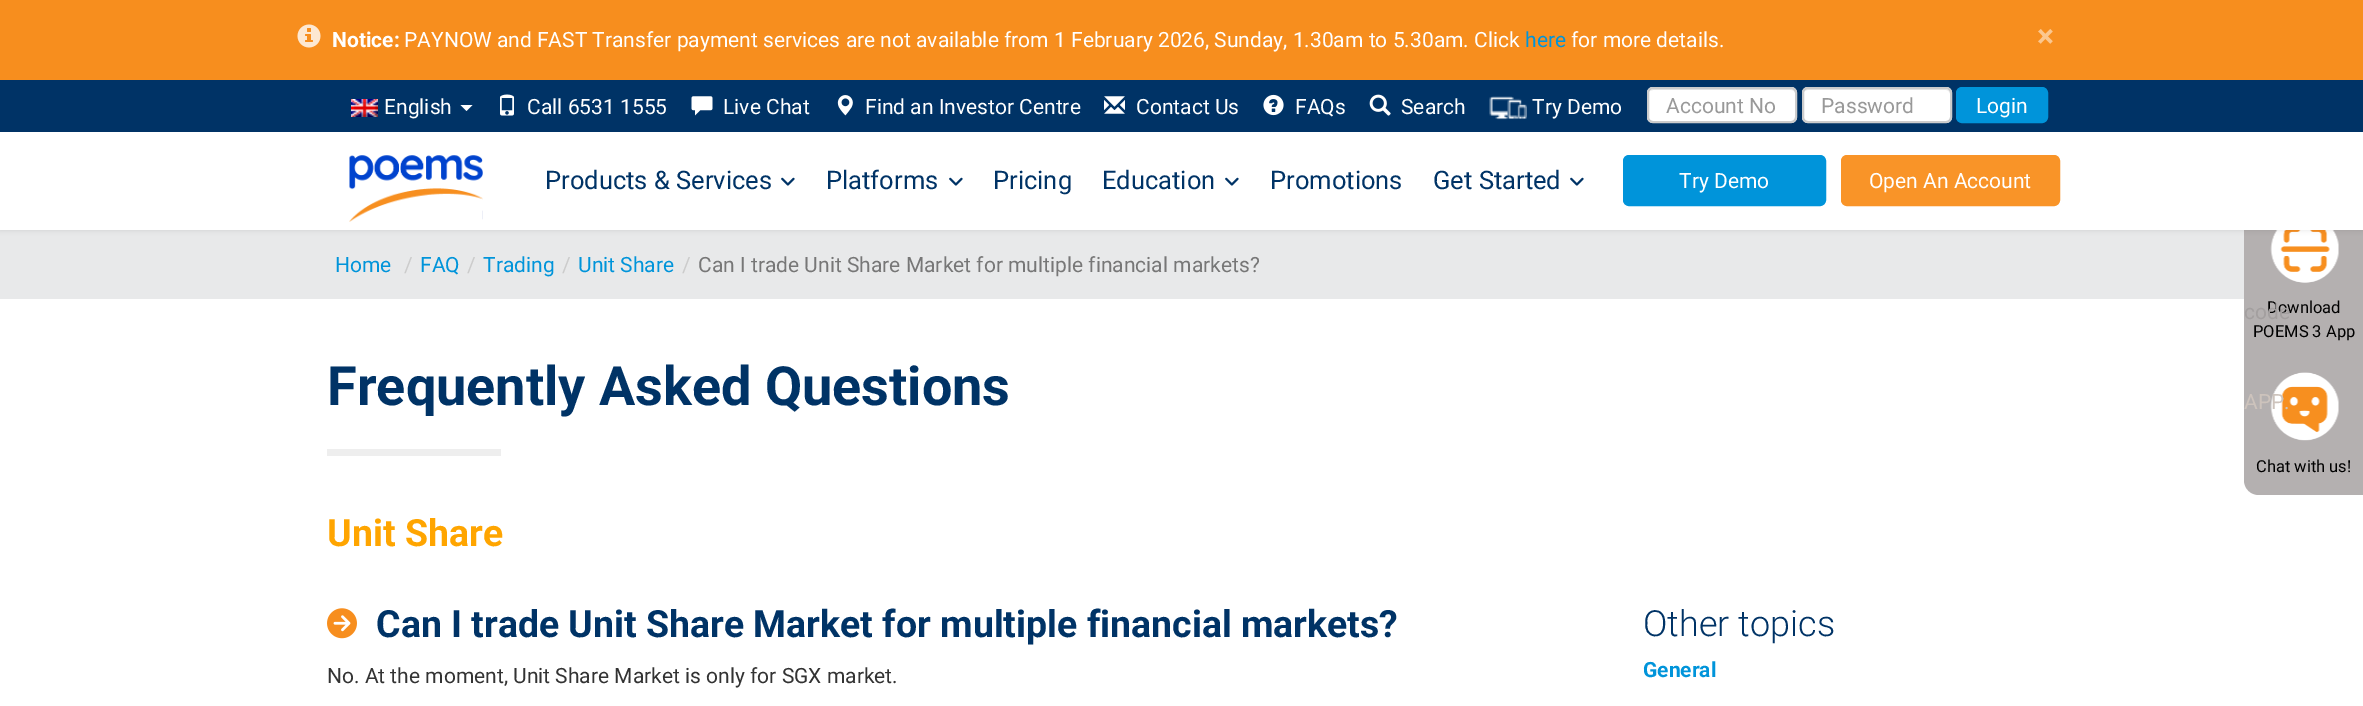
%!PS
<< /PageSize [2363 706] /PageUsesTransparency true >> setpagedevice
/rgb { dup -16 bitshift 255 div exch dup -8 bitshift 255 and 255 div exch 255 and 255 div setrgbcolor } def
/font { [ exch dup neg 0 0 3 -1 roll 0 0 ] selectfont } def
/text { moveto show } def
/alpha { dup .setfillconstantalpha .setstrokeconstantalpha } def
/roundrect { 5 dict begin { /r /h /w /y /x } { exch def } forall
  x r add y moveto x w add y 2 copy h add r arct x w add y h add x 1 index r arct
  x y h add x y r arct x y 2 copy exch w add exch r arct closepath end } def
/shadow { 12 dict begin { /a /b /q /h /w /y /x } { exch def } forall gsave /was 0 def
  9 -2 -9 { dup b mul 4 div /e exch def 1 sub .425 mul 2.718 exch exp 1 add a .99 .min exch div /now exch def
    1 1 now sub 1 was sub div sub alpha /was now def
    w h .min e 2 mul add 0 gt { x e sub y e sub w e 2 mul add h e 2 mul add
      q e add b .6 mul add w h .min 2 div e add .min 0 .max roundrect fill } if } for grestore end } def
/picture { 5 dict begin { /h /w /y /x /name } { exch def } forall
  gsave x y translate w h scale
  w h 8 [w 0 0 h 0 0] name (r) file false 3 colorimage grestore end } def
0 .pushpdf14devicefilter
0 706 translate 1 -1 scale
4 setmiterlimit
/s1 { /Roboto-Bold 21 font 16#FFFFFF rgb } def
/s2 { /Roboto-Regular 21 font 16#FFFFFF rgb } def
/s3 { /Roboto-Regular 21 font 16#0094DA rgb } def
/s4 { /Roboto-Bold 32 font 16#FBC78F rgb } def
/s5 { /Roboto-Regular 21 font 16#999999 rgb } def
/s6 { /Roboto-Regular 25.5 font 16#003366 rgb } def
/s7 { /Roboto-Regular 21 font 16#CCCCCC rgb } def
/s8 { /Roboto-Regular 21 font 16#777777 rgb } def
/s9 { /Roboto-Bold 54 font 16#003366 rgb } def
/s10 { /Roboto-Bold 37.5 font 16#FFA500 rgb } def
/s11 { /Roboto-Bold 37.5 font 16#003366 rgb } def
/s12 { /Roboto-Regular 21 font 16#333333 rgb } def
/s13 { /Roboto-Light 36 font 16#003366 rgb } def
/s14 { /Roboto-Bold 21 font 16#0094DA rgb } def
/s15 { /Roboto-Regular 16.5 font 16#000000 rgb } def
/s16 { /Roboto-Regular 21 font 16#A39F9F rgb } def
/s17 { /Roboto-Regular 21 font 16#CDC3BC rgb } def
16#E8E9EA rgb
0 0 2363 706 rectfill
16#F78E1E rgb
0 0 2363 80 rectfill
(pic1.raw) 297 24 24 24 picture
s1
(Notice:) 332 47 text
s2
(PAYNOW and FAST Transfer payment services are not available from 1 February 2026, Sunday, 1.30am to 5.30am. Click) 404 47 text
s3
(here) 1525 47 text
s2
(for more details.) 1571 47 text
s4
(×) 2037 47 text
16#003366 rgb
0 80 2363 52 rectfill
(pic2.raw) 351 99 27 18 picture
s2
(English) 384 114 text
460.5 105 moveto 472.5 105 lineto 466.5 111 lineto closepath fill
(pic3.raw) 500 94 14 22 picture
(Call 6531 1555) 527 114 text
(pic4.raw) 691 96 22 20 picture
(Live Chat) 723 114 text
(pic5.raw) 837 95 16 21 picture
(Find an Investor Centre) 865 114 text
(pic6.raw) 1104 96 21 18 picture
(Contact Us) 1136 114 text
(pic7.raw) 1263 94 21 22 picture
(FAQs) 1295 114 text
(pic8.raw) 1369 94 22 22 picture
(Search) 1401 114 text
(pic9.raw) 1489 96 38 24 picture
(Try Demo) 1532 114 text
1647 87 150 36 6 roundrect fill
16#ECECEC rgb
1653 90 moveto 1791 90 lineto 1793 90 1796 92 1796 94 curveto 1796 91 1794 89 1791 89 curveto 1654 89 lineto 1652 89 1651 90 1650 91 curveto closepath fill
16#CCCCCC rgb
2 setlinewidth
1648 88 148 34 5 roundrect stroke
s5
(Account No) 1666 113 text
16#FFFFFF rgb
1802 87 150 36 6 roundrect fill
16#ECECEC rgb
1808 90 moveto 1946 90 lineto 1948 90 1950 92 1950 94 curveto 1950 91 1948 89 1945 89 curveto 1808 89 lineto 1805 89 1803 91 1803 94 curveto 1803 92 1805 90 1808 90 curveto closepath fill
16#CCCCCC rgb
1803 88 148 34 5 roundrect stroke
s5
(Password) 1821 113 text
16#0094DA rgb
1957 88 90 34 5 roundrect gsave fill grestore
stroke
s2
(Login) 1976 113 text
0 299 2363 407 rectfill
16#B4B0B0 rgb
2244 230 119 127 rectfill
(pic13.raw) 2270 230 69 53 picture
16#000000 rgb
0 134 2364 97 0 2 0.07 shadow
16#FFFFFF rgb
0 132 2363 98 rectfill
(pic10.raw) 349 155 134 67 picture
s6
(Products & Services) 545 189 text
(pic11.raw) 781 177 14 9 picture
(Platforms) 826 189 text
(pic11.raw) 949 177 14 9 picture
(Pricing) 993 189 text
(Education) 1102 189 text
(pic11.raw) 1225 177 14 9 picture
(Promotions) 1270 189 text
(Get Started) 1433 189 text
(pic11.raw) 1570 177 14 9 picture
16#0094DA rgb
1624 156 201 49 5 roundrect gsave fill grestore
stroke
s2
(Try Demo) 1679 188 text
16#F99428 rgb
1842 156 217 49 5 roundrect gsave fill grestore
stroke
s2
(Open An Account) 1869 188 text
s3
(Home) 335 272 text
s7
(/) 404 272 text
s3
(FAQ) 420 272 text
s7
(/) 467 272 text
s3
(Trading) 483 272 text
s7
(/) 562 272 text
s3
(Unit Share) 578 272 text
s7
(/) 682 272 text
s8
(Can I trade Unit Share Market for multiple financial markets?) 698 272 text
s9
(Frequently Asked Questions) 327 405 text
16#EEEEEE rgb
327 449 174 7 rectfill
s10
(Unit Share) 327 546 text
(pic12.raw) 327 608 30 31 picture
s11
(Can I trade Unit Share Market for multiple financial markets?) 376 637 text
s12
(No. At the moment, Unit Share Market is only for SGX market.) 327 683 text
s13
(Other topics) 1643 636 text
s14
(General) 1643 677 text
s15
(Download) 2267 313 text
(POEMS 3 App) 2253 337 text
s16
(code) 2244 319 text
16#B4B0B0 rgb
2244 357 moveto 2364 357 lineto 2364 495 lineto 2259 495 lineto 2250.5 495 2244 488.5 2244 480 curveto closepath fill
(pic14.raw) 2270 372 69 69 picture
s17
(APP.) 2244 409 text
s15
(Chat with us!) 2256 472 text
.poppdf14devicefilter showpage
